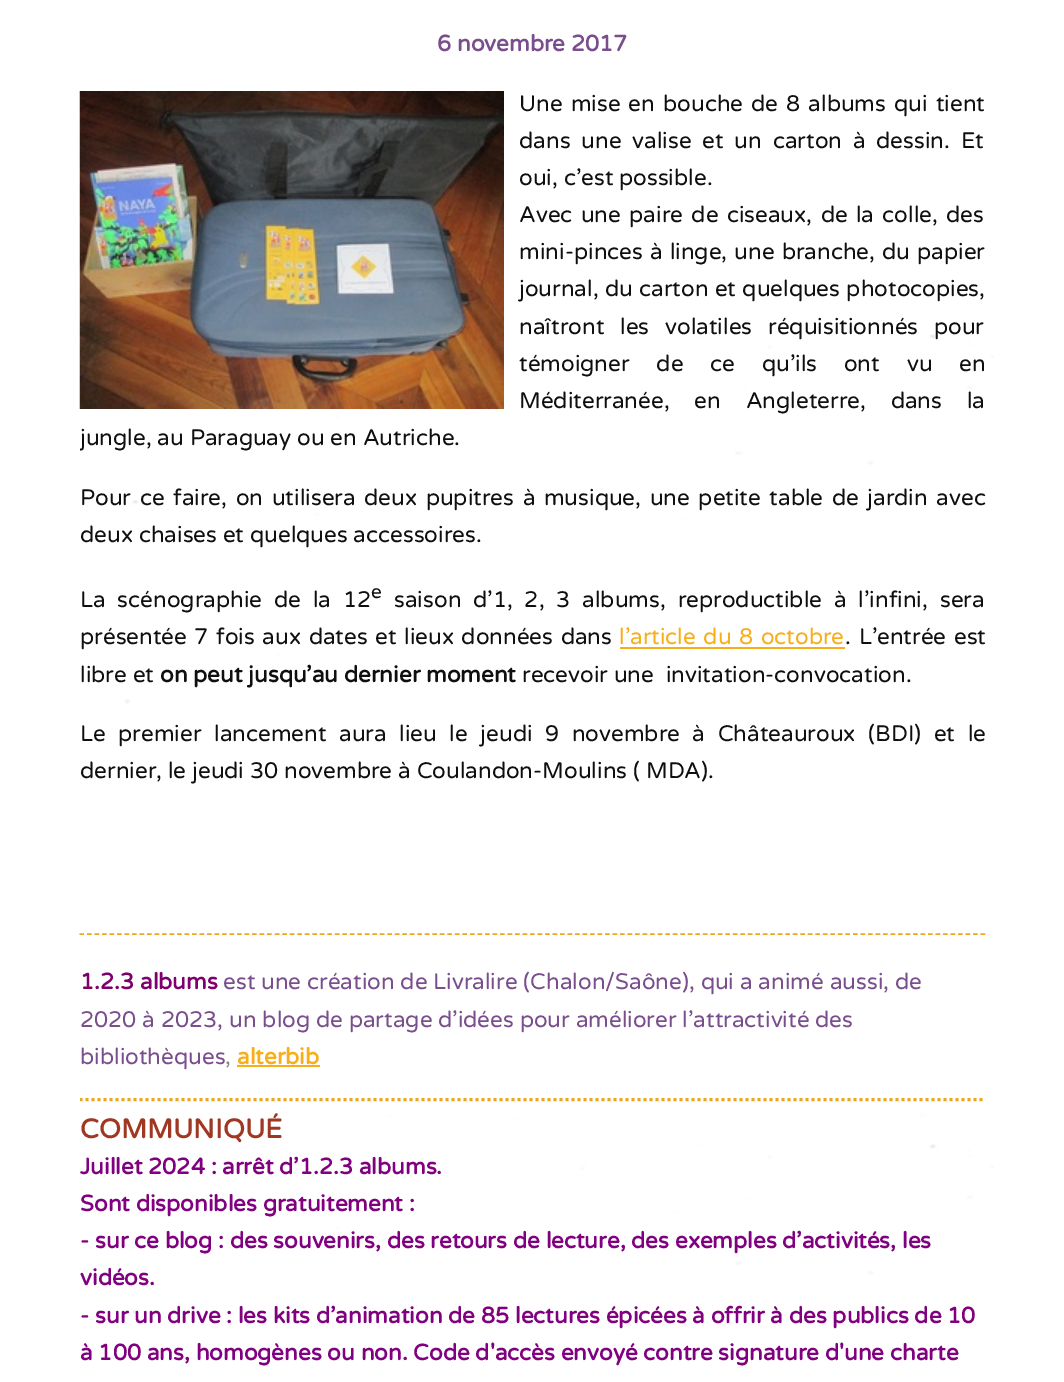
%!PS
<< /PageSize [1064 1382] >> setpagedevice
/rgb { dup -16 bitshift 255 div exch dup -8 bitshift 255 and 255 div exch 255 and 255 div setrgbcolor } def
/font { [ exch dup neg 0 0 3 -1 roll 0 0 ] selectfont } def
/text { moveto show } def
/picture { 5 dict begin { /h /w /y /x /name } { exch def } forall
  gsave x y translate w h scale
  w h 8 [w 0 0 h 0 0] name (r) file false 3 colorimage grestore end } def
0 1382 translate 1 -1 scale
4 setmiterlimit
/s1 { /VarelaRound-Bold 22.5 font 16#7A4E8D rgb } def
/s2 { /VarelaRound-Regular 22.5 font 16#0F0F0F rgb } def
/s3 { /VarelaRound-Regular 19 font 16#0F0F0F rgb } def
/s4 { /VarelaRound-Bold 22.5 font 16#0F0F0F rgb } def
/s5 { /VarelaRound-Bold 22.5 font 16#7F006C rgb } def
/s6 { /VarelaRound-Regular 22.5 font 16#7A4E8D rgb } def
/s7 { /VarelaRound-Regular 22.5 font 16#888888 rgb } def
/s8 { /VarelaRound-Bold 22.5 font 16#F8AE19 rgb } def
/s9 { /VarelaRound-Bold 27 font 16#A03722 rgb } def
/s10 { /VarelaRound-Bold 22.5 font 16#800080 rgb } def
16#FFFFFF rgb
0 0 1064 1382 rectfill
(pic1.raw) 124 334 870 980 picture
s1
(6 novembre 2017) 437 51 text
(pic2.raw) 79 91 425 318 picture
/VarelaRound-Regular 22.5 font
16#0F0F0F rgb
519 111 moveto 2.25 0 32 (Une mise en bouche de 8 albums qui tient) widthshow
519 148 moveto 5 0 32 (dans une valise et un carton à dessin. Et) widthshow
(oui, c’est possible.) 519 185 text
519 222 moveto 2.5 0 32 (Avec une paire de ciseaux, de la colle, des) widthshow
519 259 moveto 1.25 0 32 (mini-pinces à linge, une branche, du papier) widthshow
519 296 moveto 0.5 0 32 (journal, du carton et quelques photocopies,) widthshow
519 334 moveto 10 0 32 (naîtront les volatiles réquisitionnés pour) widthshow
519 371 moveto 21 0 32 (témoigner de ce qu’ils ont vu en) widthshow
519 408 moveto 19 0 32 (Méditerranée, en Angleterre, dans la) widthshow
gsave
80 0 906 873 rectclip
(jungle, au Paraguay ou en Autriche.) 80 445 text
grestore
80 505 moveto 2.75 0 32 (Pour ce faire, on utilisera deux pupitres à musique, une petite table de jardin avec) widthshow
(deux chaises et quelques accessoires.) 80 542 text
80 607 moveto 6 0 32 (La scénographie de la 12) widthshow
s3
(e) 371 598 text
/VarelaRound-Regular 22.5 font
394 607 moveto 6 0 32 (saison d’1, 2, 3 albums, reproductible à l’infini, sera) widthshow
80 644 moveto 1.75 0 32 (présentée 7 fois aux dates et lieux données dans) widthshow
16#F8AE19 rgb
619 644 moveto 1.75 0 32 (l’article du 8 octobre) widthshow
620 647 225 2 rectfill
16#0F0F0F rgb
845 644 moveto 2 0 32 (. L’entrée est) widthshow
(libre et) 80 682 text
s4
(on peut jusqu’au dernier moment) 160 682 text
s2
(recevoir une  invitation-convocation.) 522 682 text
80 741 moveto 6.75 0 32 (Le premier lancement aura lieu le jeudi 9 novembre à Châteauroux \(BDI\) et le) widthshow
(dernier, le jeudi 30 novembre à Coulandon-Moulins \( MDA\).) 80 778 text
16#EEA621 rgb
1.5 setlinewidth
[4.5 3.01] 0 setdash
79.5 934 moveto 985.5 934 lineto stroke
gsave
80 935 906 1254 rectclip
3 setlinewidth
[3 3] 0 setdash
79.5 1099.5 moveto 985.5 1099.5 lineto stroke
grestore
s5
(1.2.3 albums) 80 989 text
s6
(est une création de Livralire \(Chalon/Saône\), qui a animé aussi, de) 223 989 text
(2020 à 2023, un blog de partage d’idées pour améliorer l’attractivité des) 80 1027 text
(bibliothèques) 80 1064 text
s7
(,) 225 1064 text
s8
(alterbib) 237 1064 text
237 1065 83 2 rectfill
s9
(COMMUNIQUÉ) 80 1138 text
s10
(Juillet 2024 : arrêt d’1.2.3 albums.) 80 1174 text
(Sont disponibles gratuitement :) 80 1211 text
(- sur ce blog : des souvenirs, des retours de lecture, des exemples d’activités, les) 80 1248 text
(vidéos.) 80 1285 text
(- sur un drive : les kits d’animation de 85 lectures épicées à offrir à des publics de 10) 80 1323 text
(à 100 ans, homogènes ou non. Code d'accès envoyé contre signature d'une charte) 80 1360 text
showpage
